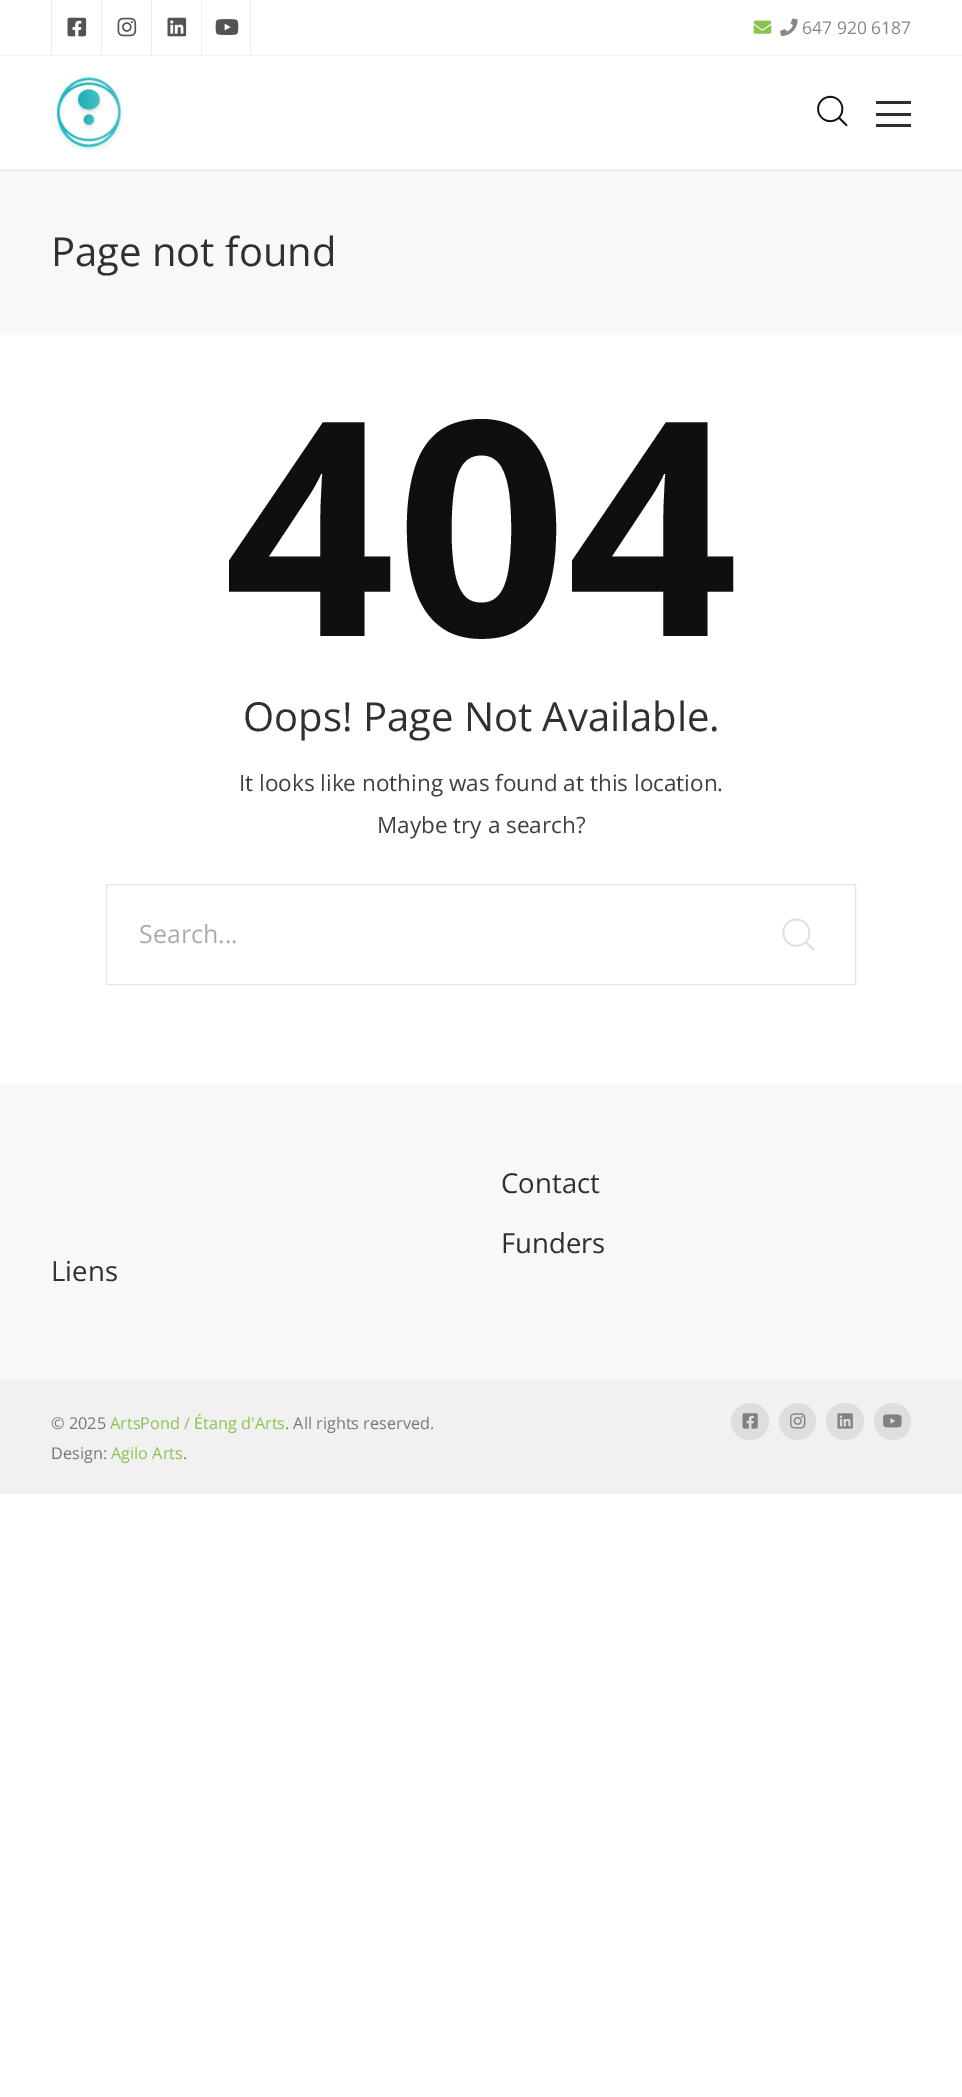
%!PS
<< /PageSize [962 2097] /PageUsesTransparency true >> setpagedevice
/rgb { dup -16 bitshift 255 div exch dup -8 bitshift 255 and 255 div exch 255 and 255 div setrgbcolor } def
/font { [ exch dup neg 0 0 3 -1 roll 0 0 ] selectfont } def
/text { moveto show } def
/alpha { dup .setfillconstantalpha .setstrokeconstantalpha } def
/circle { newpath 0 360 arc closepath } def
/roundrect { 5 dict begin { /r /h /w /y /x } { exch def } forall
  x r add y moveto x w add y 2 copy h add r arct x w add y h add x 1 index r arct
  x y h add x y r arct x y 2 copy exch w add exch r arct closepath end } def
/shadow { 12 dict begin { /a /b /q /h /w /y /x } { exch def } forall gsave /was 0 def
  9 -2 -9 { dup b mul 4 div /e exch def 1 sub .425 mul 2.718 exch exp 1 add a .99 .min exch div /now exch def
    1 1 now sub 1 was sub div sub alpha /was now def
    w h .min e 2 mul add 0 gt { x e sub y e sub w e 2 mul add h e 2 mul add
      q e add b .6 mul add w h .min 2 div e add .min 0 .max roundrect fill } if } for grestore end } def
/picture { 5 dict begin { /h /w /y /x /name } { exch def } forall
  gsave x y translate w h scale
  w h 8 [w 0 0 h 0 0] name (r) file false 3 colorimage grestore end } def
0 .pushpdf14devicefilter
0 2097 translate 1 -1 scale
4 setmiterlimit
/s1 { /OpenSans-Regular 17.5 font 16#888888 rgb } def
/s2 { /OpenSans-Regular 40 font 16#303030 rgb } def
/s3 { /OpenSans-Bold 300 font 16#0F0F0F rgb } def
/s4 { /OpenSans-Regular 22.5 font 16#3F3F3F rgb } def
/s5 { /OpenSans-Regular 25 font 16#AAAAAA rgb } def
/s6 { /OpenSans-Regular 27.5 font 16#303030 rgb } def
/s7 { /OpenSans-Regular 16.25 font 16#777777 rgb } def
/s8 { /OpenSans-Regular 16.25 font 16#8BC14E rgb } def
16#FFFFFF rgb
0 0 962 2097 rectfill
16#F8F8F8 rgb
0 169 962 166 rectfill
gsave
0 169 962 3 rectclip
16#000000 rgb
0 0 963 169 0 4.5 0.09 shadow
grestore
16#F3F3F3 rgb
0 55 962 1 rectfill
16#EEEEEE rgb
51 0 1 56 rectfill
(pic1.raw) 67 17 20 20 picture
101 0 1 56 rectfill
(pic2.raw) 117 17 20 20 picture
151 0 1 56 rectfill
(pic3.raw) 167 17 20 20 picture
250 0 1 56 rectfill
201 0 1 56 rectfill
(pic4.raw) 215 19 24 16 picture
(pic5.raw) 753 20 19 14 picture
(pic6.raw) 780 18 18 18 picture
s1
(647 920 6187) 802 34 text
16#FFFFFF rgb
4 168 955 1 rectfill
(pic7.raw) 55 77 68 73 picture
(pic8.raw) 817 95 31 32 picture
16#303030 rgb
876 113 35 3 rectfill
876 101 35 3 rectfill
876 124 35 3 rectfill
s2
(Page not found) 51 266 text
s3
(404) 224 636 text
s2
(Oops! Page Not Available.) 243 731 text
s4
(It looks like nothing was found at this location.) 239 791 text
(Maybe try a search?) 377 833 text
16#E6E6E6 rgb
106.5 884.5 749 100 rectstroke
s5
(Search...) 139 943 text
(pic9.raw) 782 918 33 33 picture
16#F8F8F8 rgb
0 1085 962 296 rectfill
s6
(Contact) 501 1193 text
(Funders) 501 1253 text
(Liens) 51 1281 text
16#F1F1F1 rgb
0 1381 962 113 rectfill
s7
(© 2025) 51 1429 text
s8
(ArtsPond / Étang d'Arts) 110 1429 text
s7
(. All rights reserved.) 285 1429 text
(Design:) 51 1459 text
s8
(Agilo Arts) 111 1459 text
s7
(.) 183 1459 text
16#DEDEDE rgb
731 1403 38 37 18.5 roundrect fill
(pic10.raw) 742 1413 16 16 picture
797.5 1421.5 18.5 circle fill
(pic11.raw) 790 1413 16 16 picture
826 1403 38 37 18.5 roundrect fill
(pic12.raw) 837 1413 16 16 picture
892.5 1421.5 18.5 circle fill
(pic13.raw) 883 1414 19 14 picture
.poppdf14devicefilter showpage
